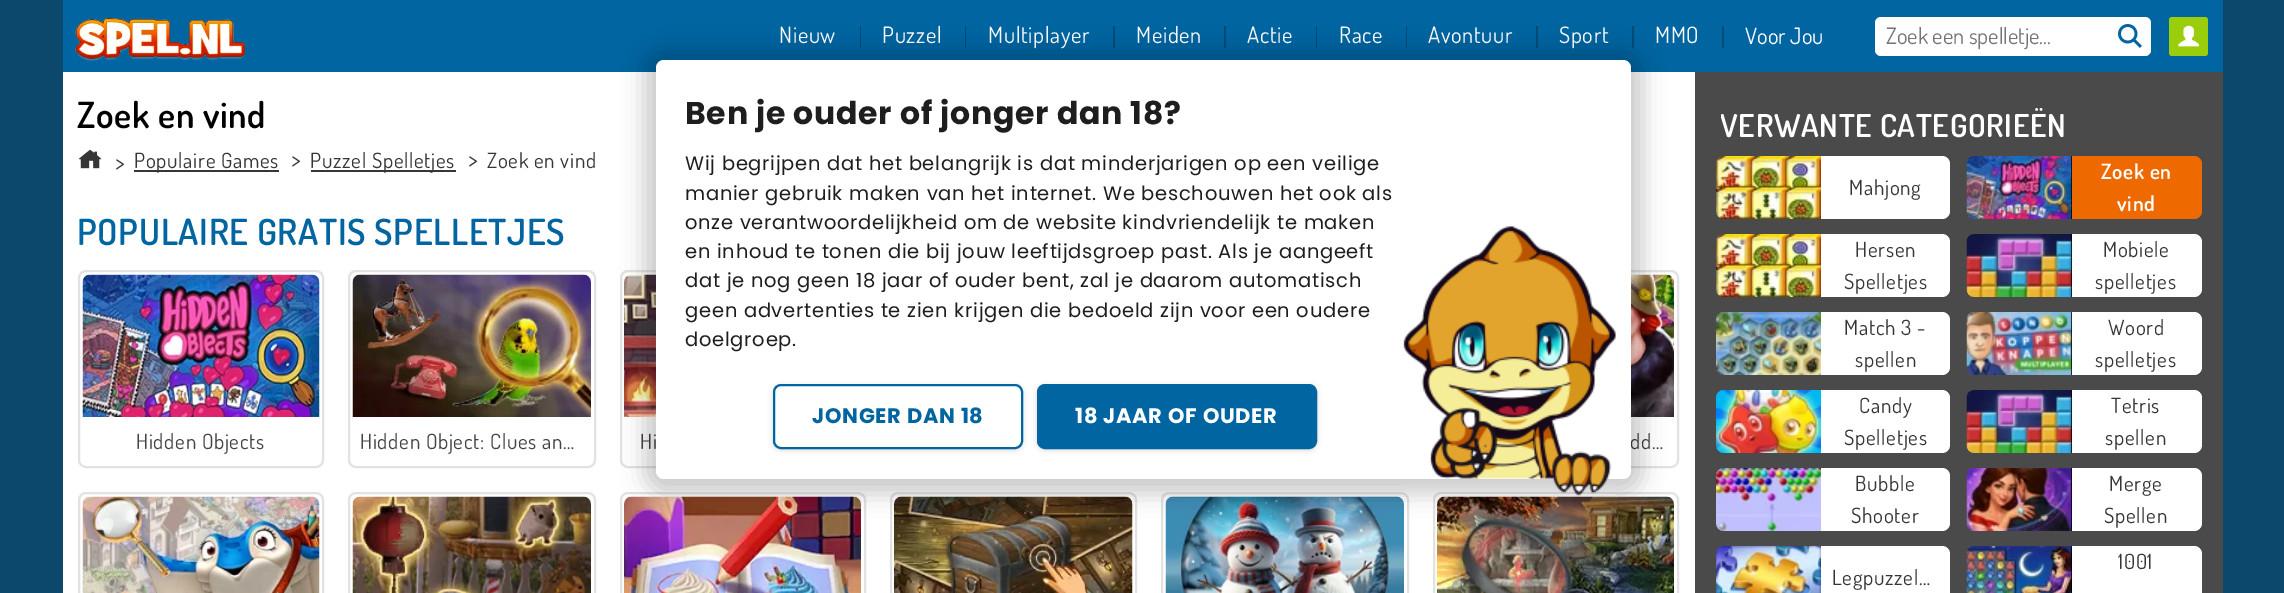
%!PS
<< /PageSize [2284 593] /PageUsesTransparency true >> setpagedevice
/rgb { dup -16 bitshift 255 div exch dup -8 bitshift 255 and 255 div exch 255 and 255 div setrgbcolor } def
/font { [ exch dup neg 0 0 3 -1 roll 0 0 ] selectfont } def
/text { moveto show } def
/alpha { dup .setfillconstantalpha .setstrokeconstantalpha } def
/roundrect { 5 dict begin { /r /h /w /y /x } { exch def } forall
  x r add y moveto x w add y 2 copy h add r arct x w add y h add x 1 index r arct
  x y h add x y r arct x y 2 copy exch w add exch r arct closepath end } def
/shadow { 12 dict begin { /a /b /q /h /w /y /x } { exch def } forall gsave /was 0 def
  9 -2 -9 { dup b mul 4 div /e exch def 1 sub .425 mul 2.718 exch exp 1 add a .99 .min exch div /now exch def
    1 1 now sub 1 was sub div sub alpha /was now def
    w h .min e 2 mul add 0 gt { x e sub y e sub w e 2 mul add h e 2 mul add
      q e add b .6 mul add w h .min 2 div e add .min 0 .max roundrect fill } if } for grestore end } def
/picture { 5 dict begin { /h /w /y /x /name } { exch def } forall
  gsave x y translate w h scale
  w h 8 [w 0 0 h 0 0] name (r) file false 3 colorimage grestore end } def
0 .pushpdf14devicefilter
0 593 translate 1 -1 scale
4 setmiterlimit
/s1 { /Dosis-Regular 22.5 font 16#FFFFFF rgb } def
/s2 { /Dosis-Regular 22.5 font 16#757575 rgb } def
16#0C486C rgb
0 0 2284 593 rectfill
16#0065A0 rgb
63 0 2160 72 rectfill
(pic1.raw) 75 18 170 44 picture
/Dosis-Regular 22.5 font
16#FFFFFF rgb
779 43 moveto 0.72 0 (Nieuw) ashow
16#014C78 rgb
860 26 1 22 rectfill
16#FFFFFF rgb
882 43 moveto 0.72 0 (Puzzel) ashow
16#014C78 rgb
965 26 1 22 rectfill
16#FFFFFF rgb
988 43 moveto 0.72 0 (Multiplayer) ashow
16#014C78 rgb
1113 26 2 22 rectfill
16#FFFFFF rgb
1136 43 moveto 0.72 0 (Meiden) ashow
16#014C78 rgb
1224 26 2 22 rectfill
16#FFFFFF rgb
1247 43 moveto 0.72 0 (Actie) ashow
16#014C78 rgb
1316 26 1 22 rectfill
16#FFFFFF rgb
1339 43 moveto 0.72 0 (Race) ashow
16#014C78 rgb
1406 26 1 22 rectfill
16#FFFFFF rgb
1428 43 moveto 0.72 0 (Avontuur) ashow
16#014C78 rgb
1536 26 2 22 rectfill
16#FFFFFF rgb
1559 43 moveto 0.72 0 (Sport) ashow
16#014C78 rgb
1632 26 2 22 rectfill
16#FFFFFF rgb
1655 43 moveto 0.72 0 (MMO) ashow
16#014C78 rgb
1722 26 2 22 rectfill
s1
(Voor Jou) 1745 44 text
16#9ACE0A rgb
2169 17 39 39 3 roundrect fill
(pic2.raw) 2178 25 21 22 picture
16#FFFFFF rgb
1875 17 276 39 6 roundrect fill
s2
(Zoek een spelletje...) 1886 44 text
(pic3.raw) 2118 24 24 24 picture
16#FFFFFF rgb
63 72 1632 521 rectfill
/Dosis-SemiBold 36 font
16#000000 rgb
77 128 moveto 0.72 0 (Zoek en vind) ashow
(pic4.raw) 78 149 24 20 picture
/Dosis-Regular 24 font
16#363636 rgb
115 171 moveto 0.72 0 (>) ashow
134 170 145 2 rectfill
/Dosis-Regular 21 font
134 168 moveto 0.72 0 (Populaire Games) ashow
/Dosis-Regular 24 font
291 168 moveto 0.72 0 (>) ashow
311 170 145 2 rectfill
/Dosis-Regular 21 font
310 168 moveto 0.72 0 (Puzzel Spelletjes) ashow
/Dosis-Regular 24 font
468 168 moveto 0.72 0 (>) ashow
/Dosis-Regular 21 font
487 168 moveto 0.72 0 (Zoek en vind) ashow
/Dosis-SemiBold 36 font
16#0065A0 rgb
77 245 moveto 0.72 0 (POPULAIRE GRATIS SPELLETJES) ashow
16#E2E2E2 rgb
2 setlinewidth
79 271 244 196 7 roundrect stroke
(pic5.raw) 82 274 238 143 picture
/Dosis-Regular 21 font
16#434343 rgb
136 449 moveto 0.72 0 (Hidden Objects) ashow
16#E2E2E2 rgb
349 271 246 196 7 roundrect stroke
(pic6.raw) 352 274 239 143 picture
16#434343 rgb
360 449 moveto 0.72 0 (Hidden Object: Clues an…) ashow
16#E2E2E2 rgb
621 271 244 196 7 roundrect stroke
(pic7.raw) 624 274 32 143 picture
16#434343 rgb
640 449 moveto 0.72 0 (Hi) ashow
16#E2E2E2 rgb
1434 271 244 196 7 roundrect stroke
(pic8.raw) 1631 274 43 143 picture
16#434343 rgb
1630 449 moveto 0.72 0 (dd…) ashow
16#E2E2E2 rgb
79 493 244 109 7 roundrect stroke
(pic9.raw) 82 496 238 97 picture
349 493 246 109 7 roundrect stroke
(pic10.raw) 352 496 239 97 picture
621 493 244 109 7 roundrect stroke
(pic11.raw) 624 496 237 97 picture
891 493 245 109 7 roundrect stroke
(pic12.raw) 894 496 239 97 picture
1162 493 246 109 7 roundrect stroke
(pic13.raw) 1165 496 239 97 picture
1434 493 244 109 7 roundrect stroke
(pic14.raw) 1437 496 237 97 picture
16#4A4A4A rgb
1695 72 528 521 rectfill
gsave
1721 101 345 48 rectclip
/Dosis-SemiBold 31.5 font
16#FFFFFF rgb
1720 137 moveto 0.72 0 (VERWANTE CATEGORIEËN) ashow
grestore
16#FFFFFF rgb
1716 156 234 63 8 roundrect fill
(pic15.raw) 1716 156 105 63 picture
16#363636 rgb
1849 195 moveto 0.72 0 (Mahjong) ashow
16#EE6900 rgb
1967 156 235 63 8 roundrect fill
16#000000 rgb
1975 156 moveto 2072 156 lineto 2072 219 lineto 1975 219 lineto 1970.5 219 1967 215.5 1967 211 curveto 1967 164 lineto 1967 159.5 1970.5 156 1975 156 curveto closepath fill
(pic16.raw) 1966 156 106 63 picture
/Dosis-SemiBold 21 font
16#FFFFFF rgb
2101 179 moveto 0.72 0 (Zoek en) ashow
2117 211 moveto 0.72 0 (vind) ashow
1716 234 234 63 8 roundrect fill
(pic15.raw) 1716 234 105 63 picture
/Dosis-Regular 21 font
16#363636 rgb
1855 257 moveto 0.72 0 (Hersen) ashow
1844 289 moveto 0.72 0 (Spelletjes) ashow
16#FFFFFF rgb
1967 234 235 63 8 roundrect fill
16#000000 rgb
1975 234 moveto 2072 234 lineto 2072 297 lineto 1975 297 lineto 1970.5 297 1967 293.5 1967 289 curveto 1967 242 lineto 1967 237.5 1970.5 234 1975 234 curveto closepath fill
(pic17.raw) 1966 234 106 63 picture
16#363636 rgb
2103 257 moveto 0.72 0 (Mobiele) ashow
2095 289 moveto 0.72 0 (spelletjes) ashow
16#FFFFFF rgb
1716 312 234 63 8 roundrect fill
(pic18.raw) 1716 312 105 63 picture
16#363636 rgb
1844 335 moveto 0.72 0 (Match 3 -) ashow
1855 367 moveto 0.72 0 (spellen) ashow
16#FFFFFF rgb
1967 312 235 63 8 roundrect fill
16#000000 rgb
1975 312 moveto 2072 312 lineto 2072 375 lineto 1975 375 lineto 1970.5 375 1967 371.5 1967 367 curveto 1967 320 lineto 1967 315.5 1970.5 312 1975 312 curveto closepath fill
(pic19.raw) 1966 312 106 63 picture
16#363636 rgb
2108 335 moveto 0.72 0 (Woord) ashow
2095 367 moveto 0.72 0 (spelletjes) ashow
16#FFFFFF rgb
1716 390 234 63 8 roundrect fill
(pic20.raw) 1716 390 105 63 picture
16#363636 rgb
1859 413 moveto 0.72 0 (Candy) ashow
1844 445 moveto 0.72 0 (Spelletjes) ashow
16#FFFFFF rgb
1967 390 235 63 8 roundrect fill
16#000000 rgb
1975 390 moveto 2072 390 lineto 2072 453 lineto 1975 453 lineto 1970.5 453 1967 449.5 1967 445 curveto 1967 398 lineto 1967 393.5 1970.5 390 1975 390 curveto closepath fill
(pic17.raw) 1966 390 106 63 picture
16#363636 rgb
2111 413 moveto 0.72 0 (Tetris) ashow
2105 445 moveto 0.72 0 (spellen) ashow
16#FFFFFF rgb
1716 468 234 63 8 roundrect fill
(pic21.raw) 1716 468 105 63 picture
16#363636 rgb
1855 491 moveto 0.72 0 (Bubble) ashow
1851 523 moveto 0.72 0 (Shooter) ashow
16#FFFFFF rgb
1967 468 235 63 8 roundrect fill
16#000000 rgb
1975 468 moveto 2072 468 lineto 2072 531 lineto 1975 531 lineto 1970.5 531 1967 527.5 1967 523 curveto 1967 476 lineto 1967 471.5 1970.5 468 1975 468 curveto closepath fill
(pic22.raw) 1966 468 106 63 picture
16#363636 rgb
2109 491 moveto 0.72 0 (Merge) ashow
2104 523 moveto 0.72 0 (Spellen) ashow
16#FFFFFF rgb
1967 546 235 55 8 roundrect fill
16#000000 rgb
1975 546 moveto 2072 546 lineto 2072 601 lineto 1975 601 lineto 1970.5 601 1967 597.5 1967 593 curveto 1967 554 lineto 1967 549.5 1970.5 546 1975 546 curveto closepath fill
(pic23.raw) 1966 546 106 47 picture
16#363636 rgb
2118 569 moveto 0.72 0 (1001) ashow
16#FFFFFF rgb
1716 546 234 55 8 roundrect fill
(pic24.raw) 1716 546 105 47 picture
16#363636 rgb
1832 585 moveto 0.72 0 (Legpuzzel…) ashow
16#000000 rgb
644 51 999 443 20 11 0.2 shadow
16#FFFFFF rgb
656 60 975 419 8 roundrect fill
/Poppins-Bold 31.5 font
16#1E1E1E rgb
685 124 moveto 0.72 0 (Ben je ouder of jonger dan 18?) ashow
/Poppins-Regular 19.5 font
685 170 moveto 0.72 0 (Wij begrijpen dat het belangrijk is dat minderjarigen op een veilige) ashow
685 200 moveto 0.72 0 (manier gebruik maken van het internet. We beschouwen het ook als) ashow
685 229 moveto 0.72 0 (onze verantwoordelijkheid om de website kindvriendelijk te maken) ashow
685 258 moveto 0.72 0 (en inhoud te tonen die bij jouw leeftijdsgroep past. Als je aangeeft) ashow
685 287 moveto 0.72 0 (dat je nog geen 18 jaar of ouder bent, zal je daarom automatisch) ashow
685 317 moveto 0.72 0 (geen advertenties te zien krijgen die bedoeld zijn voor een oudere) ashow
685 346 moveto 0.72 0 (doelgroep.) ashow
16#000000 rgb
773 386 250 64 8 3 0.16 shadow
16#FFFFFF rgb
774 385 248 63 7 roundrect gsave fill grestore
16#0065A0 rgb
stroke
/Poppins-Bold 21 font
812 423 moveto 0.72 0 (JONGER DAN 18) ashow
16#000000 rgb
1037 386 280 64 8 3 0.16 shadow
16#0065A0 rgb
1038 385 278 63 7 roundrect gsave fill grestore
stroke
16#FFFFFF rgb
1075 423 moveto 0.72 0 (18 JAAR OF OUDER) ashow
(pic25.raw) 1403 226 213 270 picture
.poppdf14devicefilter showpage
